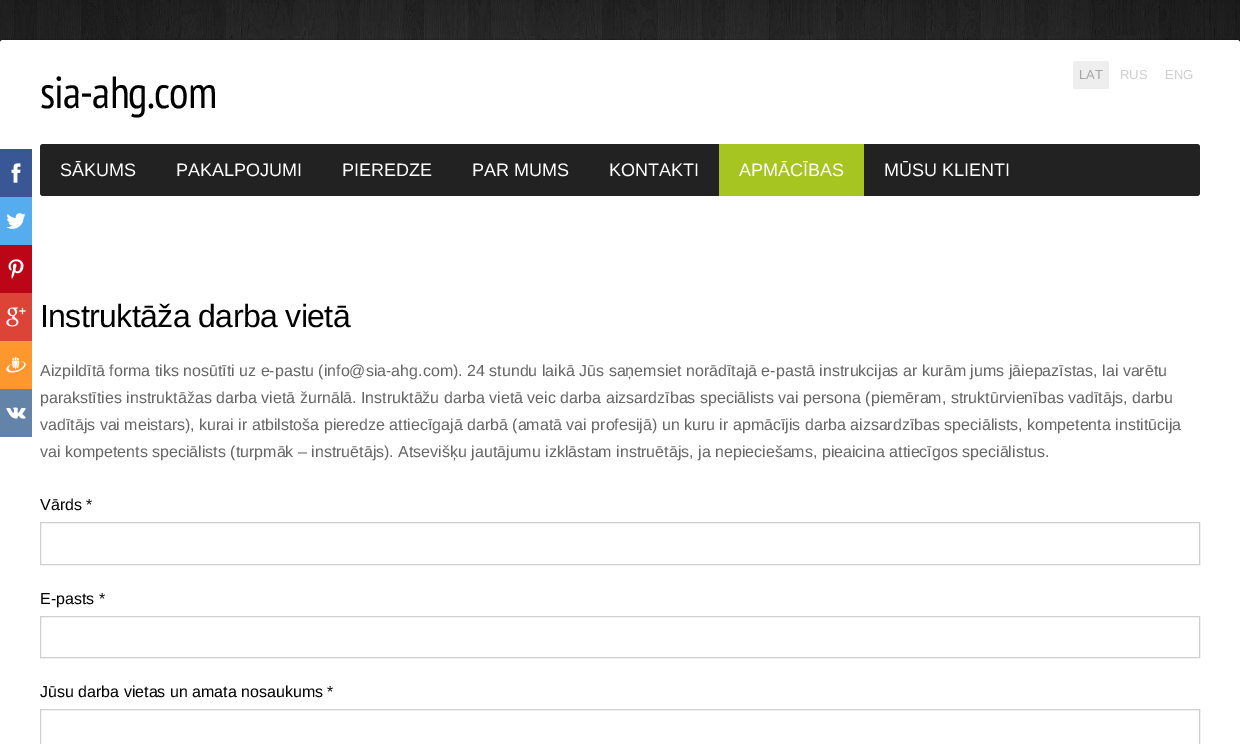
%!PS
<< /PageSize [1240 744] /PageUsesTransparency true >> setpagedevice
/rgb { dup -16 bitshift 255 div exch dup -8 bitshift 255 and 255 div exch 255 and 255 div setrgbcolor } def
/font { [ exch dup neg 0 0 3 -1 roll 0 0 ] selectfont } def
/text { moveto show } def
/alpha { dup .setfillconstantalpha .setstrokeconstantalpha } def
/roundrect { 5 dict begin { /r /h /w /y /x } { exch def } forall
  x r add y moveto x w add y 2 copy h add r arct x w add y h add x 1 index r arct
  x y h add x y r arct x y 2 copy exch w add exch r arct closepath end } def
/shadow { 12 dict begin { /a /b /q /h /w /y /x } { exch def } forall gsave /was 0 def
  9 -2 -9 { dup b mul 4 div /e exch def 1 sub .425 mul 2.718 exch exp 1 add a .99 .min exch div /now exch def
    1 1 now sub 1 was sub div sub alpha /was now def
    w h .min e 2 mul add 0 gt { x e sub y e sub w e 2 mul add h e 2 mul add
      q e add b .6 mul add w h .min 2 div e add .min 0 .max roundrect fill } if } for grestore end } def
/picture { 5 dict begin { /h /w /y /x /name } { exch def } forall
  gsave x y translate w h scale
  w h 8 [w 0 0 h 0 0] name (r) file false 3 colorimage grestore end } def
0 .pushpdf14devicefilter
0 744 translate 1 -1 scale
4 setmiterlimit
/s1 { /LiberationSans-Regular 13 font 16#A6A6A6 rgb } def
/s2 { /LiberationSans-Regular 13 font 16#CFCFCF rgb } def
/s3 { /LiberationSans-Regular 18 font 16#FFFFFF rgb } def
/s4 { /LiberationSans-Regular 16 font 16#666666 rgb } def
/s5 { /LiberationSans-Regular 16 font 16#000000 rgb } def
16#FFFFFF rgb
0 0 1240 744 rectfill
(pic1.raw) 0 0 1240 43 picture
16#000000 rgb
0 40 1240 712 3 1.5 0.3 shadow
16#FFFFFF rgb
3 40 moveto 1237 40 lineto 1238.5 40 1240 41.5 1240 43 curveto 1240 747 lineto 0 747 lineto 0 43 lineto 0 41.5 1.5 40 3 40 curveto closepath fill
16#3A5795 rgb
0 149 32 48 rectfill
(pic2.raw) 11 163 10 20 picture
16#55ACEE rgb
0 197 32 48 rectfill
(pic3.raw) 6 213 20 16 picture
16#BC0618 rgb
0 245 32 48 rectfill
(pic4.raw) 8 259 16 20 picture
16#DB4437 rgb
0 293 32 48 rectfill
(pic5.raw) 6 307 20 20 picture
16#FE972D rgb
0 341 32 48 rectfill
(pic6.raw) 6 357 20 16 picture
16#6383A8 rgb
0 389 32 48 rectfill
(pic7.raw) 6 407 20 12 picture
16#EEEEEE rgb
1073 61 36 28 2 roundrect fill
s1
(LAT) 1079 79 text
s2
(RUS) 1120 79 text
(ENG) 1165 79 text
/PTSansNarrow-Regular 45 font
16#000000 rgb
40 108 moveto -0.9 0 (sia-ahg.com) ashow
16#222222 rgb
40 144 1160 52 3 roundrect fill
s3
(SĀKUMS) 60 176 text
(PAKALPOJUMI) 176 176 text
(PIEREDZE) 342 176 text
(PAR MUMS) 472 176 text
(KONTAKTI) 609 176 text
16#A7C520 rgb
719 144 145 52 rectfill
s3
(APMĀCĪBAS) 739 176 text
(MŪSU KLIENTI) 884 176 text
/LiberationSans-Regular 32 font
16#000000 rgb
40 327 moveto -0.6 0 (Instruktāža darba vietā) ashow
s4
(Aizpildītā forma tiks nosūtīti uz e-pastu \(info@sia-ahg.com\). 24 stundu laikā Jūs saņemsiet norādītajā e-pastā instrukcijas ar kurām jums jāiepazīstas, lai varētu) 40 376 text
(parakstīties instruktāžas darba vietā žurnālā. Instruktāžu darba vietā veic darba aizsardzības speciālists vai persona \(piemēram, struktūrvienības vadītājs, darbu) 40 403 text
(vadītājs vai meistars\), kurai ir atbilstoša pieredze attiecīgajā darbā \(amatā vai profesijā\) un kuru ir apmācījis darba aizsardzības speciālists, kompetenta institūcija) 40 430 text
(vai kompetents speciālists \(turpmāk – instruētājs\). Atsevišķu jautājumu izklāstam instruētājs, ja nepieciešams, pieaicina attiecīgos speciālistus.) 40 457 text
s5
(Vārds *) 40 510 text
16#CFCFCF rgb
40.5 522.5 1159 42 rectstroke
s5
(E-pasts *) 40 604 text
16#CFCFCF rgb
40.5 616.5 1159 41 rectstroke
s5
(Jūsu darba vietas un amata nosaukums *) 40 697 text
16#CFCFCF rgb
40.5 709.5 1159 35 rectstroke
.poppdf14devicefilter showpage
